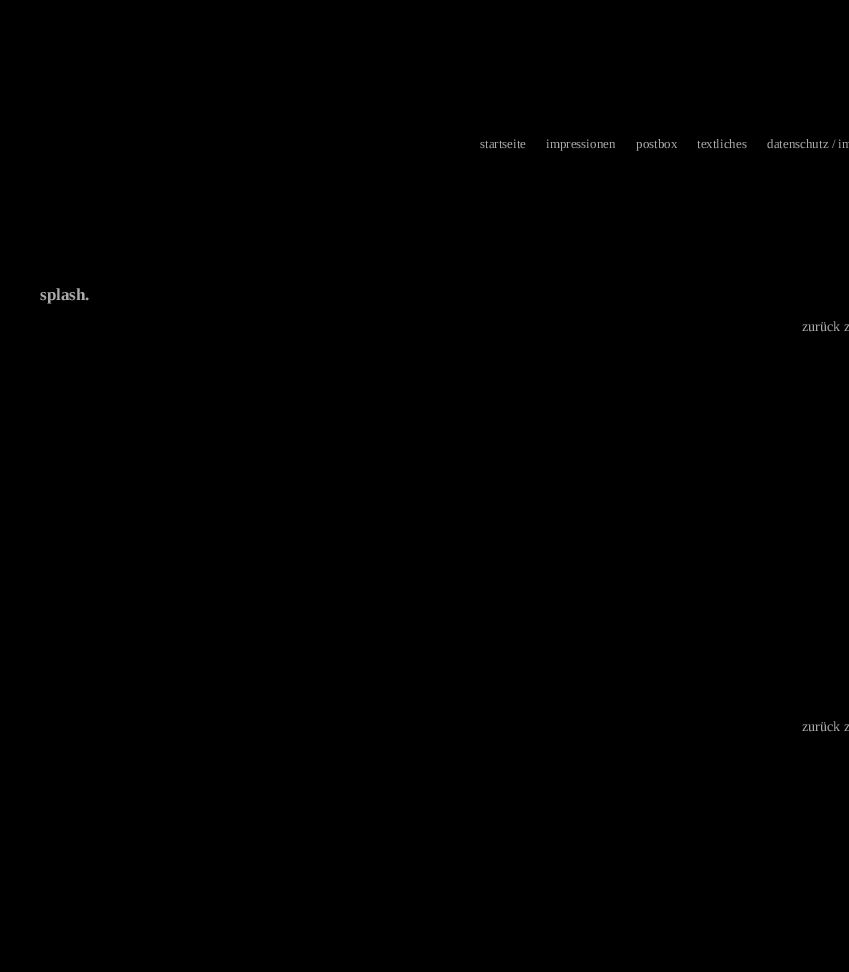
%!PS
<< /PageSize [849 972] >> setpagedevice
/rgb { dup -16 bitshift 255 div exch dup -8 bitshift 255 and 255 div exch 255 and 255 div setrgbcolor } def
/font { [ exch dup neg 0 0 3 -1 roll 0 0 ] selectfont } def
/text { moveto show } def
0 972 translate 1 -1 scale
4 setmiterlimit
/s1 { /LiberationSerif-Regular 13 font 16#AAAAAA rgb } def
/s2 { /LiberationSerif-Bold 17 font 16#AAAAAA rgb } def
/s3 { /LiberationSerif-Regular 14 font 16#AAAAAA rgb } def
16#000000 rgb
0 0 849 972 rectfill
s1
(startseite) 480 148 text
(impressionen) 546 148 text
(postbox) 636 148 text
(textliches) 697 148 text
(datenschutz / im) 767 148 text
s2
(splash.) 40 300 text
s3
(zurück z) 802 331 text
(zurück z) 802 731 text
showpage
